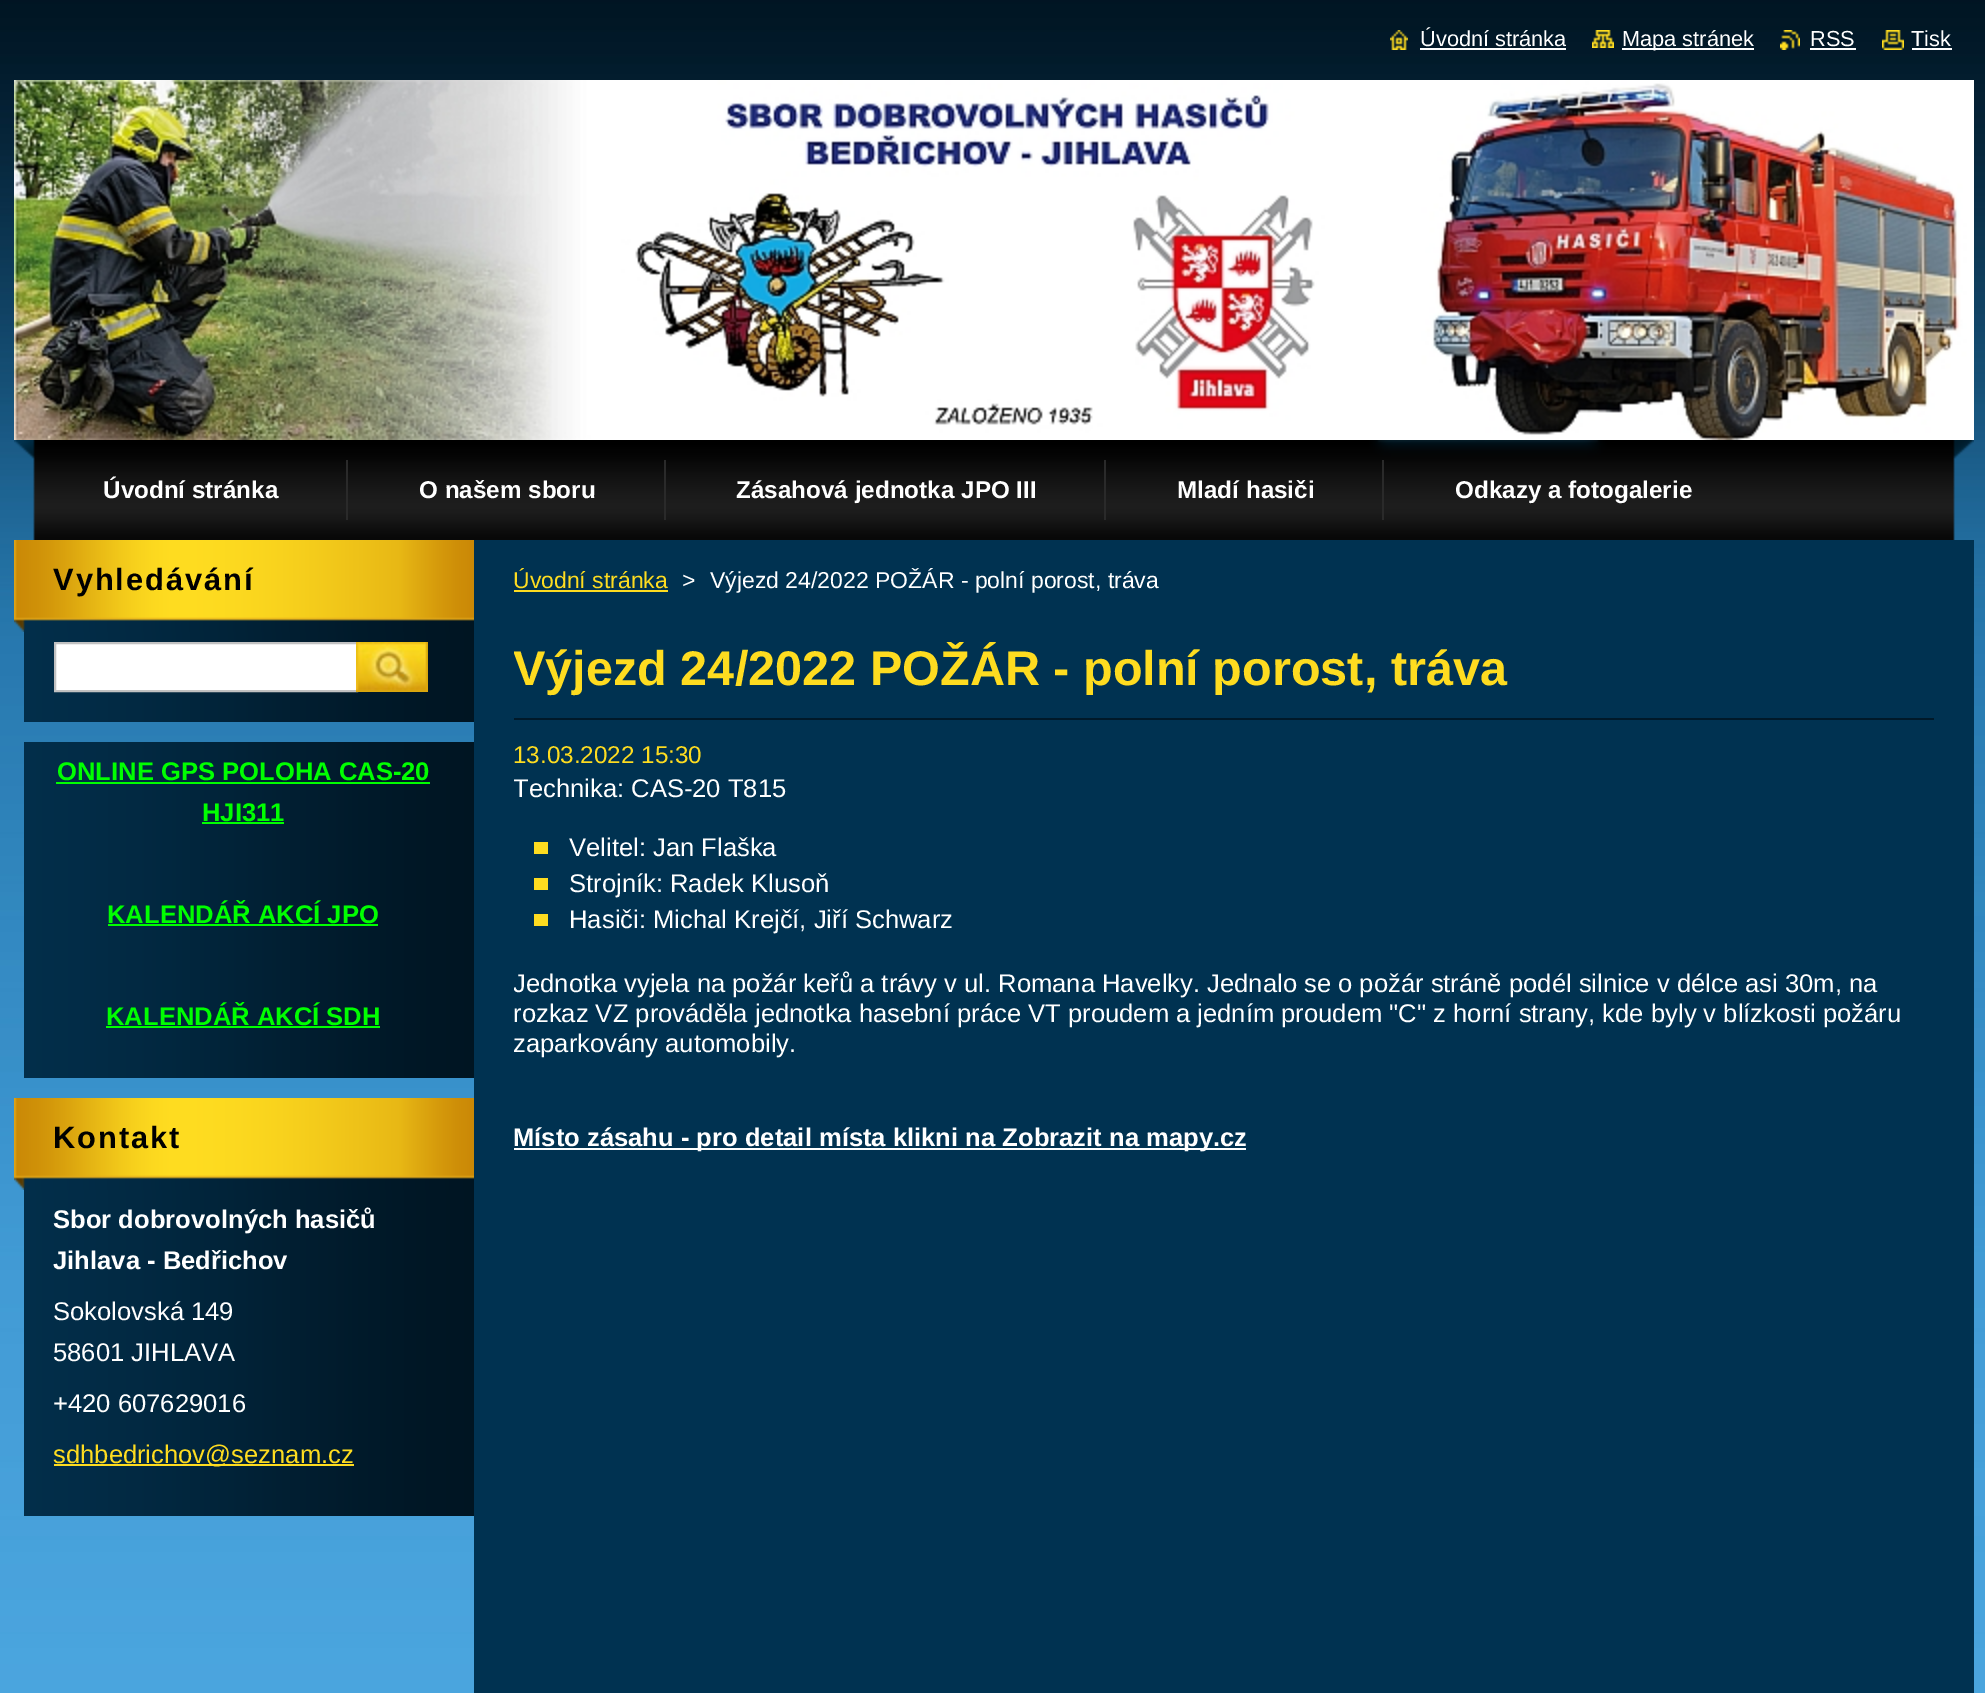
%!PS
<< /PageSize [1985 1693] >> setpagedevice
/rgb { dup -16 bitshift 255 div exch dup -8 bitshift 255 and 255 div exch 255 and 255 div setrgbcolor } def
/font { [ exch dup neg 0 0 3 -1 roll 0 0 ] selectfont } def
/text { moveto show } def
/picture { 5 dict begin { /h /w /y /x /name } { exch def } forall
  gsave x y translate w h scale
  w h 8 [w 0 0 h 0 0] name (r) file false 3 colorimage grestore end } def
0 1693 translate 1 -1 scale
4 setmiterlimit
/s1 { /LiberationSans-Regular 21.75 font 16#FFFFFF rgb } def
/s2 { /LiberationSans-Bold 24.25 font 16#FFFFFF rgb } def
/s3 { /LiberationSans-Bold 25.6 font 16#00FF00 rgb } def
/s4 { /LiberationSans-Bold 25.6 font 16#FFFFFF rgb } def
/s5 { /LiberationSans-Regular 25.6 font 16#FFFFFF rgb } def
/s6 { /LiberationSans-Regular 25.6 font 16#FEDC20 rgb } def
/s7 { /LiberationSans-Regular 23 font 16#FEDC20 rgb } def
/s8 { /LiberationSans-Regular 23 font 16#FFFFFF rgb } def
/s9 { /LiberationSans-Bold 48.6 font 16#FEDC20 rgb } def
/s10 { /LiberationSans-Regular 24.25 font 16#FEDC20 rgb } def
16#FFFFFF rgb
0 0 1985 1693 rectfill
(pic1.raw) 0 0 1985 1693 picture
(pic2.raw) 1390 30 18 20 picture
s1
(Úvodní stránka) 1420 46 text
1420 48 146 2 rectfill
(pic3.raw) 1592 30 22 18 picture
1622 48 132 2 rectfill
(Mapa stránek) 1622 46 text
(pic4.raw) 1780 30 20 20 picture
(RSS) 1810 46 text
1810 48 46 2 rectfill
(pic5.raw) 1882 30 22 20 picture
(Tisk) 1911 46 text
1912 48 40 2 rectfill
(pic6.raw) 14 80 1960 360 picture
(pic7.raw) 14 440 1960 100 picture
16#2A2A2A rgb
346 460 2 60 rectfill
s2
(Úvodní stránka) 103 498 text
16#2A2A2A rgb
664 460 2 60 rectfill
s2
(O našem sboru) 419 498 text
16#2A2A2A rgb
1104 460 2 60 rectfill
s2
(Zásahová jednotka JPO III) 736 498 text
16#2A2A2A rgb
1382 460 2 60 rectfill
s2
(Mladí hasiči) 1177 498 text
(Odkazy a fotogalerie) 1455 498 text
(pic8.raw) 24 620 450 102 picture
(pic9.raw) 14 540 460 92 picture
/LiberationSans-Bold 30.75 font
16#000000 rgb
53 590 moveto 2 0 (Vyhledávání) ashow
16#FFFFFF rgb
55 643 moveto 357 643 lineto 357 691 lineto 55 691 lineto closepath gsave fill grestore
16#C1C1C1 rgb
2 setlinewidth
stroke
(pic10.raw) 356 642 72 50 picture
(pic11.raw) 24 742 450 336 picture
s3
(ONLINE GPS POLOHA CAS-20) 57 780 text
56 782 374 2 rectfill
(HJI311) 202 821 text
202 822 82 2 rectfill
(KALENDÁŘ AKCÍ JPO) 107 923 text
108 924 270 2 rectfill
(KALENDÁŘ AKCÍ SDH) 106 1025 text
106 1026 274 2 rectfill
(pic12.raw) 24 1178 450 338 picture
(pic13.raw) 14 1098 460 92 picture
/LiberationSans-Bold 30.75 font
16#000000 rgb
53 1148 moveto 2 0 (Kontakt) ashow
s4
(Sbor dobrovolných hasičů) 53 1228 text
(Jihlava - Bedřichov) 53 1269 text
s5
(Sokolovská 149) 53 1320 text
(58601 JIHLAVA) 53 1361 text
(+420 607629016) 53 1412 text
16#FEDC20 rgb
54 1464 300 2 rectfill
(sdhbedrichov@seznam.cz) 53 1463 text
16#003251 rgb
474 540 1500 1153 rectfill
s7
(Úvodní stránka) 513 588 text
514 590 154 2 rectfill
s8
(>) 682 588 text
(Výjezd 24/2022 POŽÁR - polní porost, tráva) 710 588 text
16#001929 rgb
514 718 1420 2 rectfill
gsave
514 642 1420 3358 rectclip
s9
(Výjezd 24/2022 POŽÁR - polní porost, tráva) 513 685 text
grestore
s10
(13.03.2022 15:30) 513 763 text
gsave
514 740 1420 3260 rectclip
s5
(Technika: CAS-20 T815) 513 797 text
grestore
534 842 14 12 rectfill
s5
(Velitel: Jan Flaška) 569 856 text
16#FEDC20 rgb
534 878 14 12 rectfill
s5
(Strojník: Radek Klusoň) 569 892 text
16#FEDC20 rgb
534 914 14 12 rectfill
s5
(Hasiči: Michal Krejčí, Jiří Schwarz) 569 928 text
gsave
514 740 1420 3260 rectclip
(Jednotka vyjela na požár keřů a trávy v ul. Romana Havelky. Jednalo se o požár stráně podél silnice v délce asi 30m, na) 513 992 text
grestore
(rozkaz VZ prováděla jednotka hasební práce VT proudem a jedním proudem "C" z horní strany, kde byly v blízkosti požáru) 513 1022 text
(zaparkovány automobily.) 513 1052 text
514 1148 732 2 rectfill
s4
(Místo zásahu - pro detail místa klikni na Zobrazit na mapy.cz) 513 1146 text
showpage
